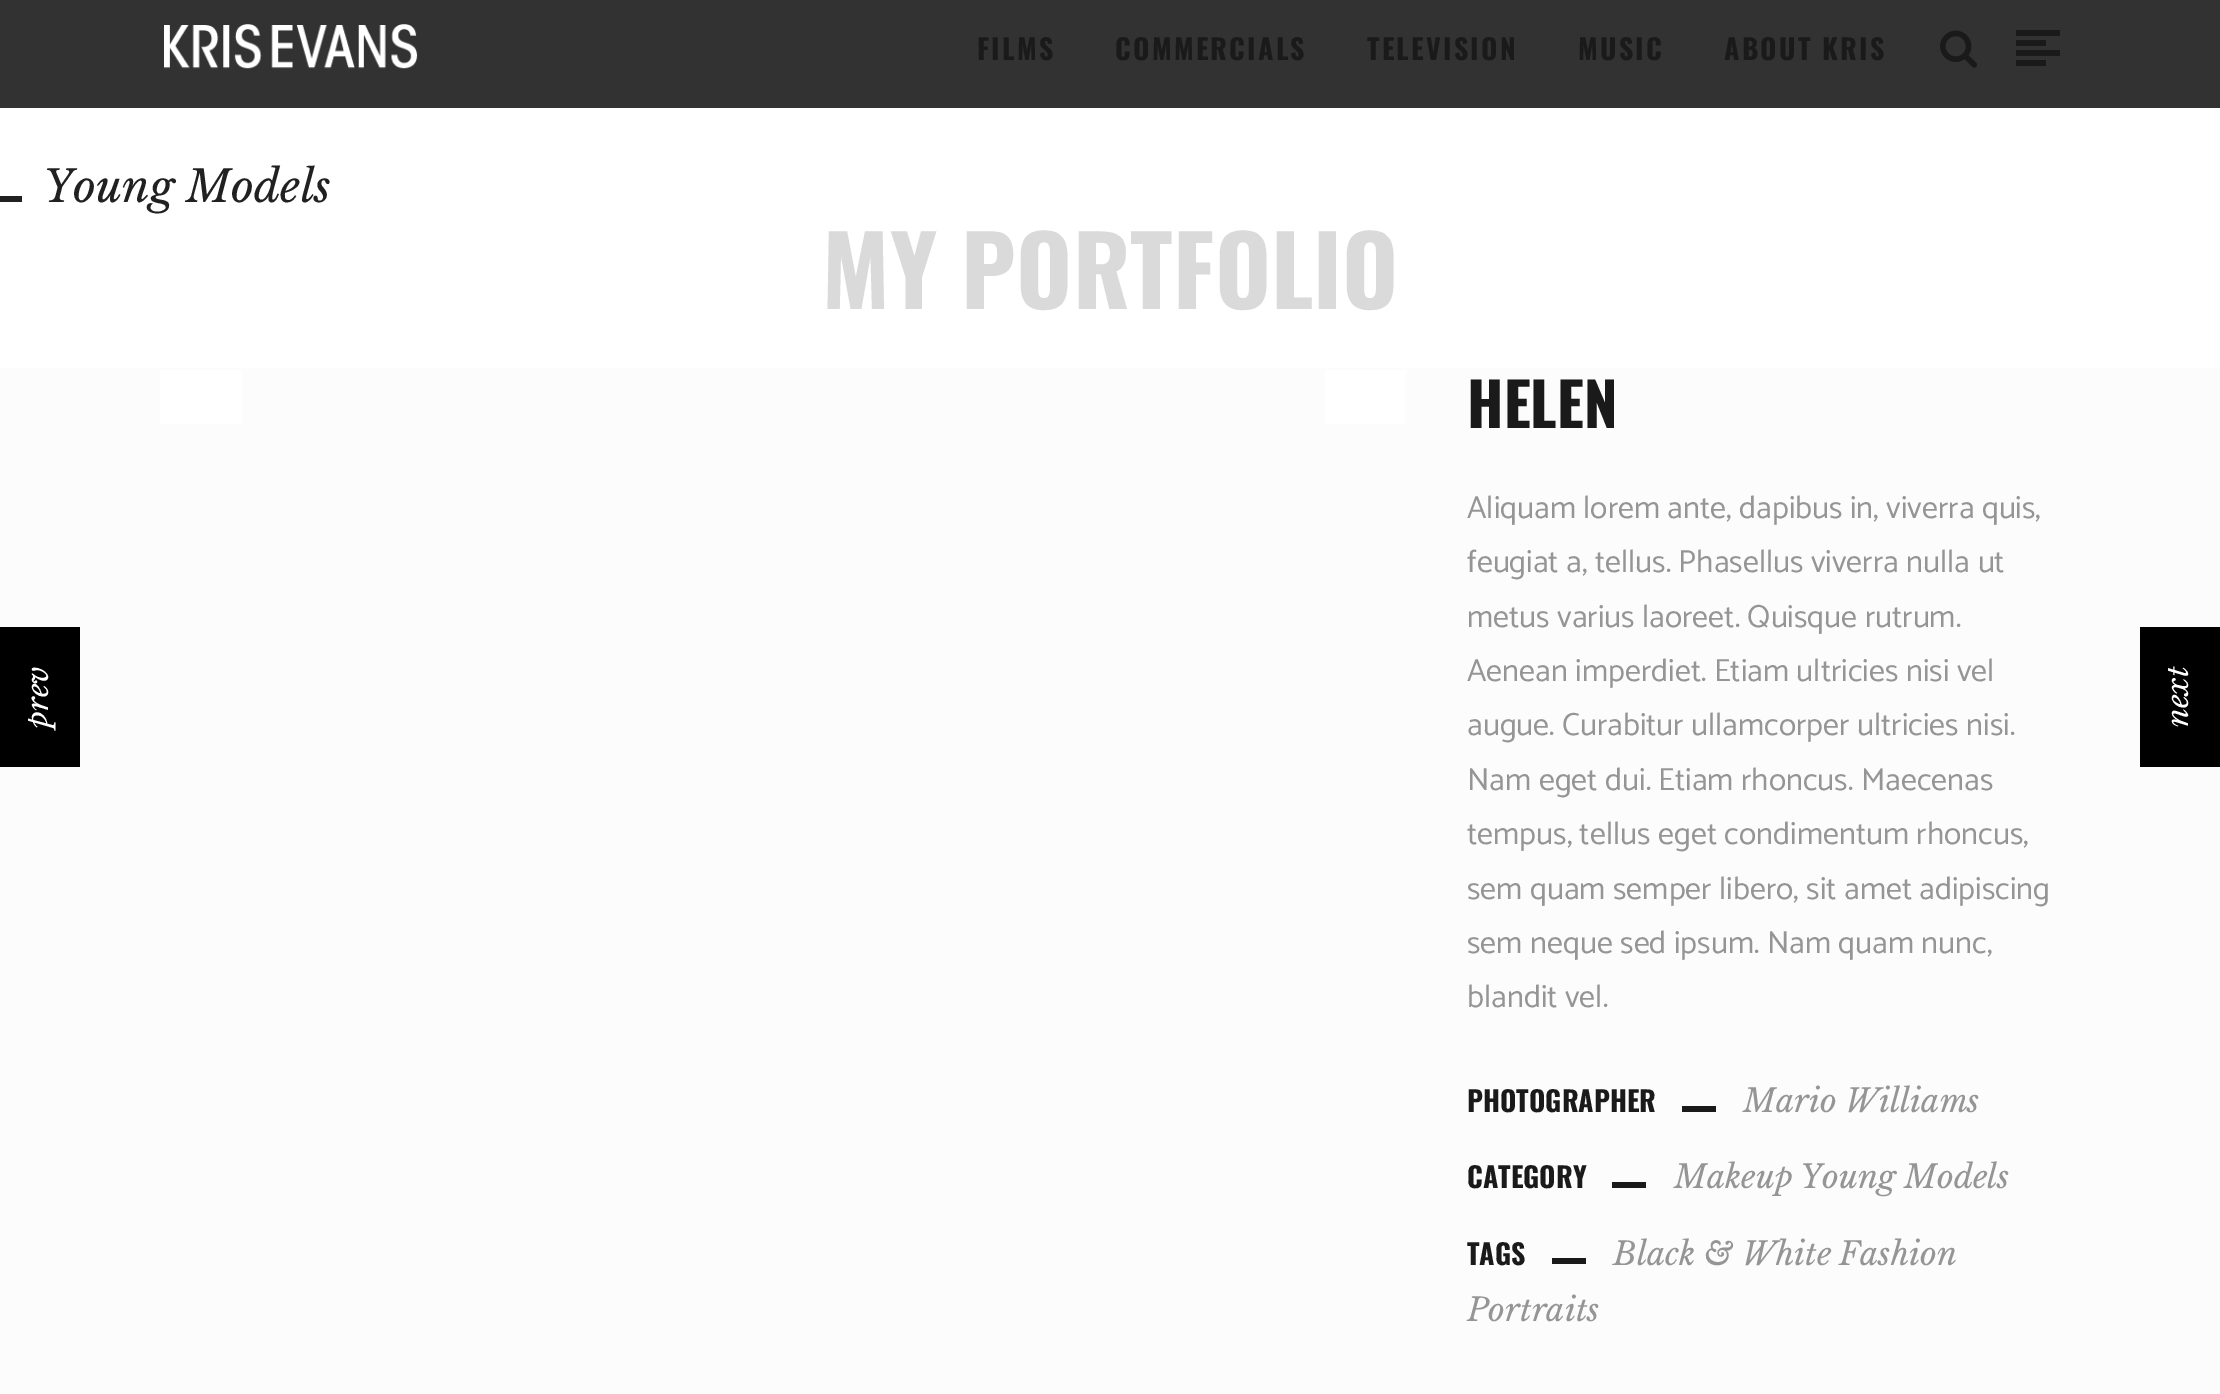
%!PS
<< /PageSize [2220 1394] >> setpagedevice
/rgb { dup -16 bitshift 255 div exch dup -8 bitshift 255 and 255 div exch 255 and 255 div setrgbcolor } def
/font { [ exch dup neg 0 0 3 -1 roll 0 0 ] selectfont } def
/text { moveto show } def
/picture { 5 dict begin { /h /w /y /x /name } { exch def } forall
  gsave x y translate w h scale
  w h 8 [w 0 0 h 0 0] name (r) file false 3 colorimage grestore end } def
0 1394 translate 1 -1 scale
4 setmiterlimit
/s1 { /LibreBaskerville-Italic 44 font 16#212121 rgb } def
/s2 { /Oswald-Bold 96 font 16#DADADA rgb } def
/s3 { /Oswald-Bold 60 font 16#1A1A1A rgb } def
/s4 { /Catamaran-Regular 32 font 16#959595 rgb } def
/s5 { /Oswald-Bold 28 font 16#1A1A1A rgb } def
/s6 { /LibreBaskerville-Italic 32 font 16#959595 rgb } def
16#FCFCFC rgb
0 0 2220 1394 rectfill
16#323232 rgb
0 0 2220 108 rectfill
(pic1.raw) 164 24 254 45 picture
/Oswald-Bold 28 font
16#1A1A1A rgb
977 60 moveto 2.25 0 (FILMS) ashow
1115 60 moveto 2.25 0 (COMMERCIALS) ashow
1367 60 moveto 2.25 0 (TELEVISION) ashow
1578 60 moveto 2.25 0 (MUSIC) ashow
1724 60 moveto 2.25 0 (ABOUT KRIS) ashow
(pic2.raw) 1940 30 37 38 picture
2016 30 44 6 rectfill
2016 40 30 6 rectfill
2016 50 44 6 rectfill
2016 60 30 6 rectfill
16#FFFFFF rgb
0 108 2220 260 rectfill
16#212121 rgb
0 196 22 6 rectfill
s1
(Young Models) 43 202 text
s2
(MY PORTFOLIO) 822 309 text
16#FFFFFF rgb
160 370 82 54 rectfill
1325 370 81 54 rectfill
s3
(HELEN) 1467 428 text
s4
(Aliquam lorem ante, dapibus in, viverra quis,) 1467 518 text
(feugiat a, tellus. Phasellus viverra nulla ut) 1467 572 text
(metus varius laoreet. Quisque rutrum.) 1467 627 text
(Aenean imperdiet. Etiam ultricies nisi vel) 1467 681 text
(augue. Curabitur ullamcorper ultricies nisi.) 1467 735 text
(Nam eget dui. Etiam rhoncus. Maecenas) 1467 790 text
(tempus, tellus eget condimentum rhoncus,) 1467 844 text
(sem quam semper libero, sit amet adipiscing) 1467 899 text
(sem neque sed ipsum. Nam quam nunc,) 1467 953 text
(blandit vel.) 1467 1007 text
s5
(PHOTOGRAPHER) 1467 1112 text
1682 1106 34 6 rectfill
s6
(Mario Williams) 1743 1112 text
s5
(CATEGORY) 1467 1188 text
1612 1182 34 6 rectfill
s6
(Makeup) 1674 1188 text
(Young Models) 1800 1188 text
s5
(TAGS) 1467 1265 text
1552 1258 34 6 rectfill
s6
(Black & White) 1613 1265 text
(Fashion) 1839 1265 text
(Portraits) 1467 1321 text
16#000000 rgb
0 627 80 140 rectfill
/LibreBaskerville-Italic 30 font
16#FFFFFF rgb
gsave 48 728 translate -90 rotate 0 0 moveto (prev) show grestore
16#000000 rgb
2140 627 80 140 rectfill
16#FFFFFF rgb
gsave 2188 727 translate -90 rotate 0 0 moveto (next) show grestore
showpage
